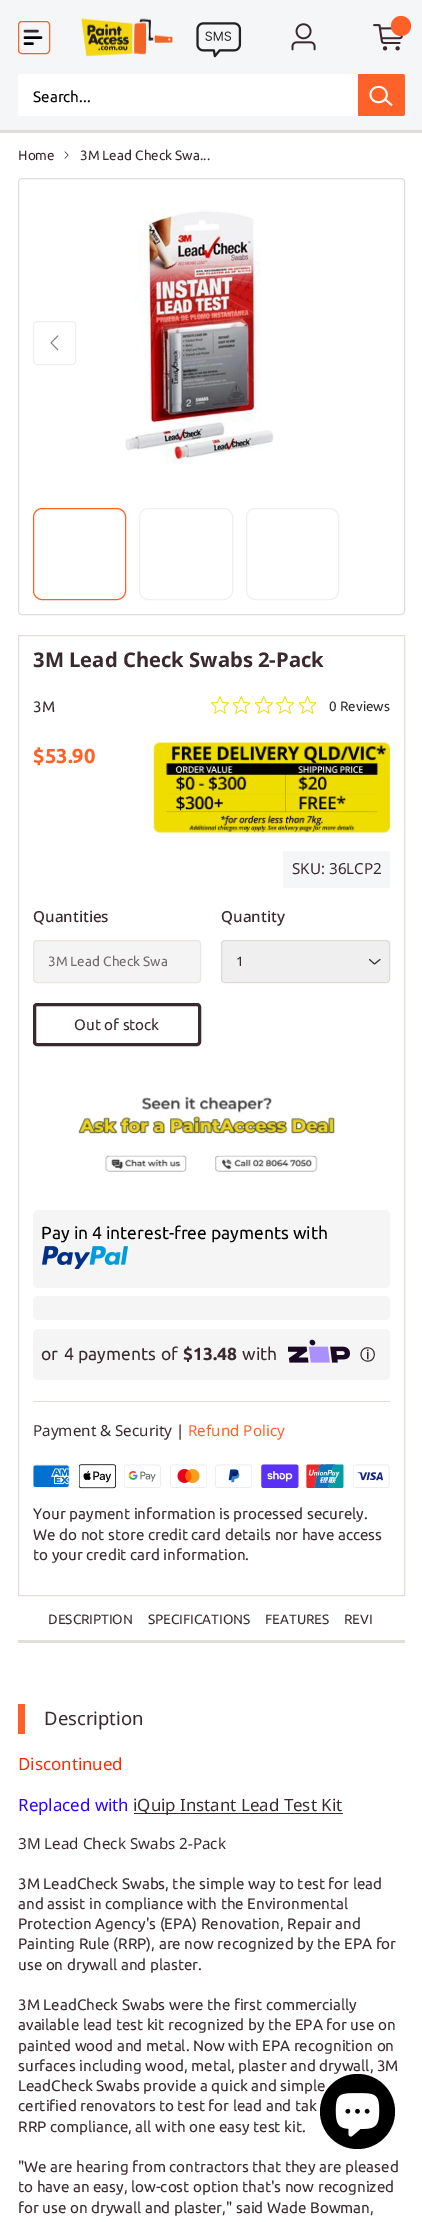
%!PS
<< /PageSize [422 2222] /PageUsesTransparency true >> setpagedevice
/rgb { dup -16 bitshift 255 div exch dup -8 bitshift 255 and 255 div exch 255 and 255 div setrgbcolor } def
/font { [ exch dup neg 0 0 3 -1 roll 0 0 ] selectfont } def
/text { moveto show } def
/alpha { dup .setfillconstantalpha .setstrokeconstantalpha } def
/circle { newpath 0 360 arc closepath } def
/roundrect { 5 dict begin { /r /h /w /y /x } { exch def } forall
  x r add y moveto x w add y 2 copy h add r arct x w add y h add x 1 index r arct
  x y h add x y r arct x y 2 copy exch w add exch r arct closepath end } def
/picture { 5 dict begin { /h /w /y /x /name } { exch def } forall
  gsave x y translate w h scale
  w h 8 [w 0 0 h 0 0] name (r) file false 3 colorimage grestore end } def
0 .pushpdf14devicefilter
0 2222 translate 1 -1 scale
4 setmiterlimit
/s1 { /Ubuntu-Regular 15.2 font 16#000000 rgb } def
/s2 { /Ubuntu-Regular 13.5 font 16#3A2A2F rgb } def
/s3 { /NotoSans-Bold 20.25 font 16#3A2A2F rgb } def
/s4 { /Ubuntu-Regular 15.2 font 16#3A2A2F rgb } def
/s5 { /Ubuntu-Regular 13.5 font 16#2C2C2C rgb } def
/s6 { /Ubuntu-Bold 20.25 font 16#FF6128 rgb } def
/s7 { /NotoSans-Regular 15.2 font 16#3A2A2F rgb } def
/s8 { /NotoSans-Medium 15.2 font 16#3A2A2F rgb } def
/s9 { /Ubuntu-Regular 13.5 font 16#756A6D rgb } def
/s10 { /Ubuntu-Regular 17.5 font 16#000000 rgb } def
/s11 { /Ubuntu-Regular 17.5 font 16#3A2A2F rgb } def
/s12 { /Ubuntu-Bold 17.5 font 16#3A2A2F rgb } def
/s13 { /WenQuanYiZenHei-Bold 15 font 16#3A2A2F rgb } def
/s14 { /NotoSans-Regular 15.2 font 16#FF6128 rgb } def
/s15 { /NotoSans-Regular 18.5 font 16#3A2A2F rgb } def
/s16 { /NotoSans-Regular 16.9 font 16#FF2A00 rgb } def
/s17 { /NotoSans-Regular 16.9 font 16#2B00FF rgb } def
/s18 { /NotoSans-Regular 16.9 font 16#3A2A2F rgb } def
16#FFFFFF rgb
0 0 422 2222 rectfill
16#F5F6F7 rgb
0 0 422 130 rectfill
16#000000 rgb
2.5 setlinewidth
1 setlinecap
25 37.5 moveto 41 37.5 lineto 25 43.5 moveto 32.5 43.5 lineto stroke
16#3A2A2F rgb
25 31 moveto 37.5 31 lineto stroke
16#FF6128 rgb
1 setlinewidth
0 setlinecap
18.5 21.5 31 32 3.5 roundrect stroke
(pic1.raw) 81 18 92 39 picture
(pic2.raw) 196 22 46 36 picture
(pic3.raw) 291 23 25 28 picture
(pic4.raw) 373 24 31 27 picture
401 26 10 circle fill
16#E2DCD8 rgb
0 130 422 3 rectfill
16#FFFFFF rgb
20.5 74 moveto 358 74 lineto 358 116 lineto 20.5 116 lineto 19 116 18 115 18 113.5 curveto 18 76.5 lineto 18 75 19 74 20.5 74 curveto closepath fill
s1
(Search...) 33 102 text
16#FF6128 rgb
358 74 moveto 402.5 74 lineto 404 74 405 75 405 76.5 curveto 405 113.5 lineto 405 115 404 116 402.5 116 curveto 358 116 lineto closepath fill
(pic5.raw) 369 85 24 22 picture
(pic6.raw) 64 151 5 8 picture
s2
(Home) 18 160 text
(3M Lead Check Swa...) 80 160 text
16#DEDEDE rgb
18.5 178.5 386 436 3.5 roundrect stroke
(pic7.raw) 50 335 9 16 picture
16#F1EFED rgb
33.5 321.5 42 43 3.5 roundrect stroke
(pic8.raw) 125 208 149 256 picture
16#FF6128 rgb
33.5 508.5 92 91 8.5 roundrect stroke
16#F1EFED rgb
139.5 508.5 93 91 8.5 roundrect stroke
246.5 508.5 92 91 8.5 roundrect stroke
16#E4DED9 rgb
18.5 635.5 386 960 rectstroke
s3
(3M Lead Check Swabs 2-Pack) 33 667 text
s4
(3M) 33 712 text
(pic9.raw) 211 696 18 18 picture
(pic10.raw) 233 696 17 18 picture
(pic11.raw) 255 696 18 18 picture
(pic9.raw) 276 696 18 18 picture
(pic12.raw) 299 696 17 18 picture
s5
(0 Reviews) 329 711 text
s6
($53.90) 33 763 text
(pic13.raw) 153 742 237 91 picture
16#F5F6F7 rgb
283 851 107 37 rectfill
s7
(SKU: 36LCP2) 292 874 text
s8
(Quantities) 33 922 text
16#F4F4F4 rgb
33 940 168 43 4 roundrect fill
0.8 alpha
16#E7E2DE rgb
33.5 940.5 167 42 3.5 roundrect stroke
1 alpha
s9
(3M Lead Check Swa) 48 966 text
s8
(Quantity) 221 922 text
16#EFEFEF rgb
221 940 169 43 4 roundrect fill
16#363636 rgb
1 setlinecap
1 setlinejoin
369.5 959.5 moveto 374.5 964 lineto 380 959.5 lineto stroke
0.8 alpha
16#DDD6D0 rgb
0 setlinecap
0 setlinejoin
221.5 940.5 168 42 3.5 roundrect stroke
1 alpha
s2
(1) 236 966 text
3 setlinewidth
34.5 1004.5 165 40 2.5 roundrect stroke
s4
(Out of stock) 74 1030 text
(pic14.raw) 78 1096 257 76 picture
16#F5F5F5 rgb
33 1210 357 78 5 roundrect fill
s10
(Pay in 4 interest-free payments with) 41 1239 text
(pic15.raw) 42 1246 86 23 picture
16#F5F5F5 rgb
33 1296 357 24 5 roundrect fill
33 1329 357 51 5 roundrect fill
s11
(or) 41 1360 text
(4 payments) 64 1360 text
(of) 161 1360 text
s12
($13.48) 183 1360 text
s11
(with) 242 1360 text
(pic16.raw) 288 1339 62 24 picture
s13
(ⓘ) 360 1360 text
16#E4DED9 rgb
33 1401 357 1 rectfill
s7
(Payment & Security |) 33 1436 text
s14
(Refund Policy) 188 1436 text
(pic17.raw) 33 1464 37 24 picture
(pic18.raw) 79 1464 37 25 picture
(pic19.raw) 124 1464 37 24 picture
(pic20.raw) 170 1464 37 24 picture
(pic21.raw) 215 1464 37 24 picture
(pic22.raw) 261 1464 38 24 picture
(pic23.raw) 306 1464 38 24 picture
(pic24.raw) 353 1464 37 24 picture
s4
(Your payment information is processed securely.) 33 1519 text
(We do not store credit card details nor have access) 33 1540 text
(to your credit card information.) 33 1560 text
16#E4DED9 rgb
18 1640 387 3 rectfill
s2
(DESCRIPTION) 48 1624 text
(SPECIFICATIONS) 148 1624 text
(FEATURES) 265 1624 text
(REVI) 344 1624 text
16#FF6128 rgb
18 1704 7 30 rectfill
s15
(Description) 44 1725 text
s16
(Discontinued) 18 1770 text
s17
(Replaced with) 18 1811 text
16#3A2A2F rgb
134 1813 209 1 rectfill
(iQuip Instant Lead Test Kit) 133 1811 text
s7
(3M Lead Check Swabs 2-Pack) 18 1849 text
s4
(3M LeadCheck Swabs, the simple way to test for lead) 18 1889 text
(and assist in compliance with the Environmental) 18 1909 text
(Protection Agency's \(EPA\) Renovation, Repair and) 18 1929 text
(Painting Rule \(RRP\), are now recognized by the EPA for) 18 1949 text
(use on drywall and plaster.) 18 1970 text
(3M LeadCheck Swabs were the first commercially) 18 2010 text
(available lead test kit recognized by the EPA for use on) 18 2030 text
(painted wood and metal. Now with EPA recognition on) 18 2051 text
(surfaces including wood, metal, plaster and drywall, 3M) 18 2071 text
(LeadCheck Swabs provide a quick and simple) 18 2091 text
(certified renovators to test for lead and tak) 18 2111 text
(RRP compliance, all with one easy test kit.) 18 2132 text
("We are hearing from contractors that they are pleased) 18 2172 text
(to have an easy, low-cost option that's now recognized) 18 2192 text
(for use on drywall and plaster," said Wade Bowman,) 18 2213 text
16#000000 rgb
357.5 2111.5 37.5 circle fill
(pic25.raw) 335 2093 45 44 picture
.poppdf14devicefilter showpage
